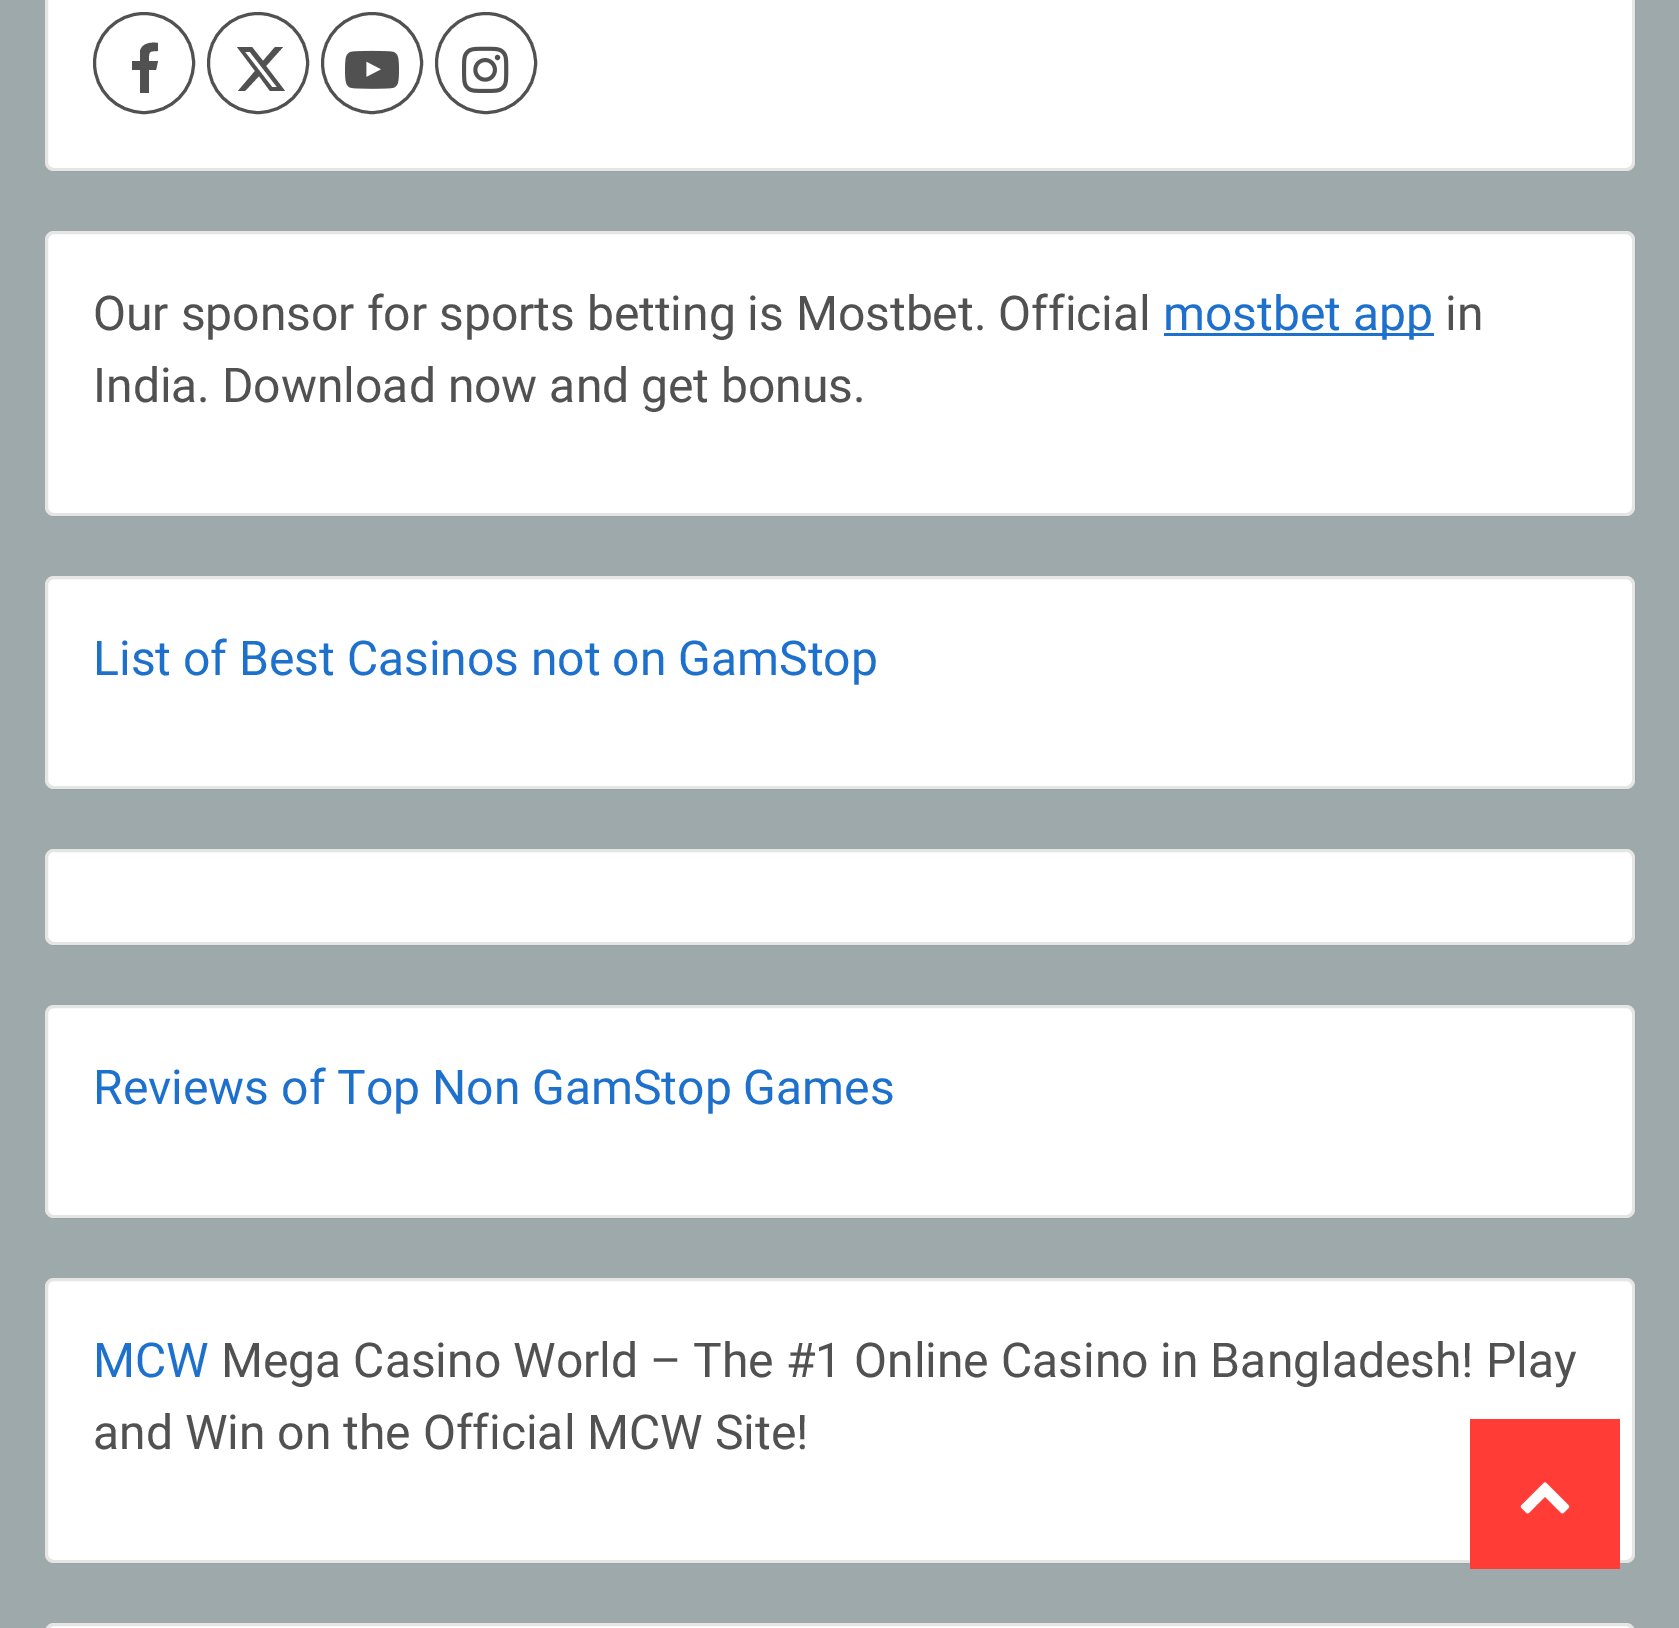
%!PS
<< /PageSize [1679 1628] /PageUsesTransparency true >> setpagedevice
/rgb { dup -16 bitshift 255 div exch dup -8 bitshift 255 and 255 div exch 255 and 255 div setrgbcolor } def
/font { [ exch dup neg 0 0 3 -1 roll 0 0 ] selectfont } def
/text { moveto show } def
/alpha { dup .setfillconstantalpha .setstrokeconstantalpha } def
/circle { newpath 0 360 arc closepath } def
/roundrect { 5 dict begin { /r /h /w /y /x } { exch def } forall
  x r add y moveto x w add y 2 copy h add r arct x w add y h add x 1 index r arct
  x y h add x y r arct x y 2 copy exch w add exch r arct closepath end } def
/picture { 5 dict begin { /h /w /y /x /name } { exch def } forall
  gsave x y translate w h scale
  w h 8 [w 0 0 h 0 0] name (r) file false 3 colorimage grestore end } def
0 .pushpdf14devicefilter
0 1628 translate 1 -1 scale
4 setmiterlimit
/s1 { /Roboto-Regular 48 font 16#515151 rgb } def
/s2 { /Roboto-Regular 48 font 16#1E70CD rgb } def
16#9DA9AA rgb
0 0 1679 1628 rectfill
16#FFFFFF rgb
45 -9 1590 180 9 roundrect fill
0.1 alpha
16#000101 rgb
3 setlinewidth
46.5 -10.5 1587 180 7.5 roundrect stroke
1 alpha
16#515151 rgb
144 63 49.5 circle stroke
158 43 moveto 158 51 lineto 148 51 149 52 149 61 curveto 158 61 lineto 156 70 lineto 149 70 lineto 149 93 lineto 140 93 lineto 140 70 lineto 132 70 lineto 132 61 lineto 140 61 lineto 140 51 lineto 142 43 151 42 158 43 curveto closepath fill
258 63 49.5 circle stroke
275 47 moveto 283 47 lineto 266 66 lineto 285 91 lineto 270 91 lineto 259 76 lineto 245 91 lineto 238 91 lineto 255 71 lineto 237 47 lineto 252 47 lineto 263 61 lineto closepath 272 87 moveto 277 87 lineto 250 52 lineto 245 52 lineto closepath fill
372 63 49.5 circle stroke
(pic1.raw) 345 50 54 39 picture
486 63 49.5 circle stroke
(pic2.raw) 462 46 47 47 picture
16#FFFFFF rgb
45 231 1590 285 9 roundrect fill
0.1 alpha
16#000101 rgb
46.5 232.5 1587 282 7.5 roundrect stroke
1 alpha
s1
(Our sponsor for sports betting is Mostbet. Official) 93 330 text
16#1E70CD rgb
1164 333 270 3 rectfill
(mostbet app) 1163 330 text
s1
(in) 1445 330 text
(India. Download now and get bonus.) 93 402 text
16#FFFFFF rgb
45 576 1590 213 9 roundrect fill
0.1 alpha
16#000101 rgb
46.5 577.5 1587 210 7.5 roundrect stroke
1 alpha
s2
(List of Best Casinos not on GamStop) 93 675 text
16#FFFFFF rgb
45 849 1590 96 9 roundrect fill
0.1 alpha
16#000101 rgb
46.5 850.5 1587 93 7.5 roundrect stroke
1 alpha
16#FFFFFF rgb
45 1005 1590 213 9 roundrect fill
0.1 alpha
16#000101 rgb
46.5 1006.5 1587 210 7.5 roundrect stroke
1 alpha
s2
(Reviews of Top Non GamStop Games) 93 1104 text
16#FFFFFF rgb
45 1278 1590 285 9 roundrect fill
0.1 alpha
16#000101 rgb
46.5 1279.5 1587 282 7.5 roundrect stroke
1 alpha
s2
(MCW) 93 1377 text
s1
(Mega Casino World – The #1 Online Casino in Bangladesh! Play) 221 1377 text
(and Win on the Official MCW Site!) 93 1449 text
16#FFFFFF rgb
45 1623 1590 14 9 roundrect fill
0.1 alpha
16#000101 rgb
46.5 1624.5 1587 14 7.5 roundrect stroke
1 alpha
16#FF3C36 rgb
1470 1419 150 150 rectfill
(pic3.raw) 1520 1482 50 32 picture
.poppdf14devicefilter showpage
